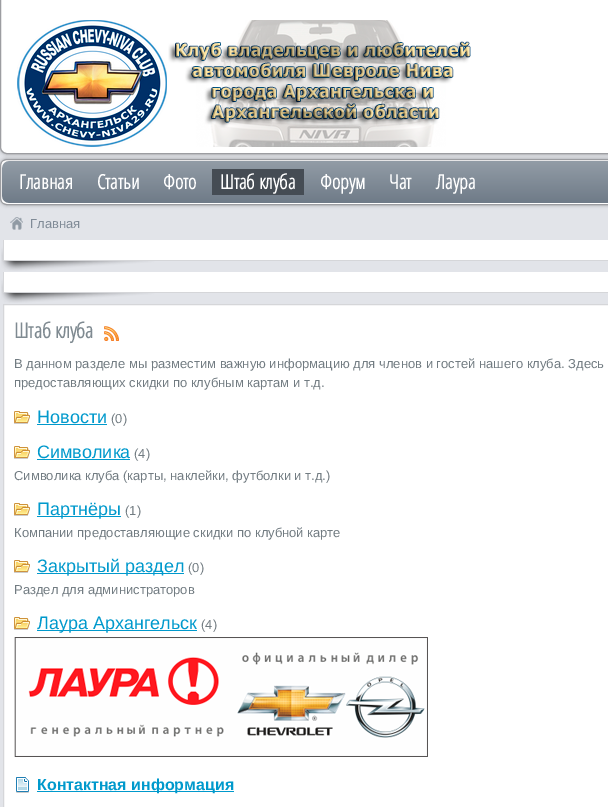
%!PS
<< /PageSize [608 807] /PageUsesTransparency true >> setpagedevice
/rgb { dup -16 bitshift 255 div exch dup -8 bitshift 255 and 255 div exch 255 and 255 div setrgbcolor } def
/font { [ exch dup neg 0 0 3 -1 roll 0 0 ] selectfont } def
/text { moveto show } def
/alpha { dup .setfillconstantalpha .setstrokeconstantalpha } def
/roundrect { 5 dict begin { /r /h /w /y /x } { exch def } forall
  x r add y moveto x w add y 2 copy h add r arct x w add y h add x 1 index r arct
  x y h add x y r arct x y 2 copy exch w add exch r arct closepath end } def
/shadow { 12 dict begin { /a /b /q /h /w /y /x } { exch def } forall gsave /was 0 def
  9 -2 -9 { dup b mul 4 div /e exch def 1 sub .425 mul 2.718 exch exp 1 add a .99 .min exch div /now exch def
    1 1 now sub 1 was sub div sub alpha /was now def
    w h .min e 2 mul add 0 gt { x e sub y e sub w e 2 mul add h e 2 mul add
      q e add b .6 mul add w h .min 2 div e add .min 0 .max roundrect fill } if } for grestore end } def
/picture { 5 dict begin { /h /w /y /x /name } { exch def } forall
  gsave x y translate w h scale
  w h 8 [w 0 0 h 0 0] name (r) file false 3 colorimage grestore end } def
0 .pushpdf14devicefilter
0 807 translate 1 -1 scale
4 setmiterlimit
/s1 { /OpenSansCondensed-Bold 20 font 16#FFFFFF rgb } def
/s2 { /LiberationSans-Regular 13 font 16#808B97 rgb } def
/s3 { /OpenSansCondensed-Bold 21 font 16#7F8A91 rgb } def
/s4 { /LiberationSans-Regular 13 font 16#727C82 rgb } def
/s5 { /LiberationSans-Regular 18 font 16#0099CC rgb } def
/s6 { /LiberationSans-Bold 16 font 16#0099CC rgb } def
16#E2E4E9 rgb
0 0 608 807 rectfill
16#9C9DA1 rgb
0 -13 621 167 7 2 1 shadow
16#FFFFFF rgb
0.5 -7.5 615 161 6.5 roundrect gsave fill grestore
16#9C9DA1 rgb
stroke
(pic1.raw) 17 20 454 127 picture
0 159 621 46 7 2 1 shadow
16#FFFFFF rgb
0.5 159.5 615 45 6.5 roundrect gsave fill grestore
16#9C9DA1 rgb
stroke
(pic2.raw) 2 161 606 42 picture
s1
(Главная) 19 189 text
(Статьи) 97 189 text
(Фото) 163 189 text
16#454C54 rgb
212 169 92 26 rectfill
s1
(Штаб клуба) 220 189 text
(Форум) 320 189 text
(Чат) 389 189 text
(Лаура) 436 189 text
(pic3.raw) 10 217 13 13 picture
s2
(Главная) 30 228 text
(pic4.raw) 1 245 155 26 picture
16#FFFFFF rgb
4 240 604 20 rectfill
16#D5D6D9 rgb
3 260 605 1 rectfill
3 240 1 21 rectfill
(pic4.raw) 1 277 155 26 picture
16#FFFFFF rgb
4 272 604 20 rectfill
16#D5D6D9 rgb
3 292 605 1 rectfill
3 272 1 21 rectfill
16#FFFFFF rgb
3.5 304.5 moveto 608.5 304.5 lineto 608.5 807.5 lineto 3.5 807.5 lineto closepath gsave fill grestore
16#D5D6D9 rgb
stroke
s3
(Штаб клуба) 14 338 text
(pic5.raw) 104 326 15 15 picture
s4
(В данном разделе мы разместим важную информацию для членов и гостей нашего клуба. Здесь) 14 368 text
(предоставляющих скидки по клубным картам и т.д.) 14 387 text
(pic6.raw) 14 411 16 13 picture
s5
(Новости) 37 423 text
37 424 70 1 rectfill
s4
(\(0\)) 111 423 text
(pic6.raw) 14 446 16 13 picture
s5
(Символика) 37 458 text
37 459 93 1 rectfill
s4
(\(4\)) 134 458 text
(Символика клуба \(карты, наклейки, футболки и т.д.\)) 14 480 text
(pic6.raw) 14 503 16 13 picture
16#0099CC rgb
37 516 84 1 rectfill
s5
(Партнёры) 37 515 text
s4
(\(1\)) 125 515 text
(Компании предоставляющие скидки по клубной карте) 14 537 text
(pic6.raw) 14 560 16 13 picture
16#0099CC rgb
37 573 147 1 rectfill
s5
(Закрытый раздел) 37 572 text
s4
(\(0\)) 188 572 text
(Раздел для администраторов) 14 594 text
(pic6.raw) 14 617 16 13 picture
16#0099CC rgb
37 630 160 1 rectfill
s5
(Лаура Архангельск) 37 629 text
s4
(\(4\)) 201 629 text
(pic7.raw) 14 637 414 120 picture
(pic8.raw) 16 777 13 16 picture
16#0099CC rgb
37 791 197 1 rectfill
s6
(Контактная информация) 37 790 text
.poppdf14devicefilter showpage
